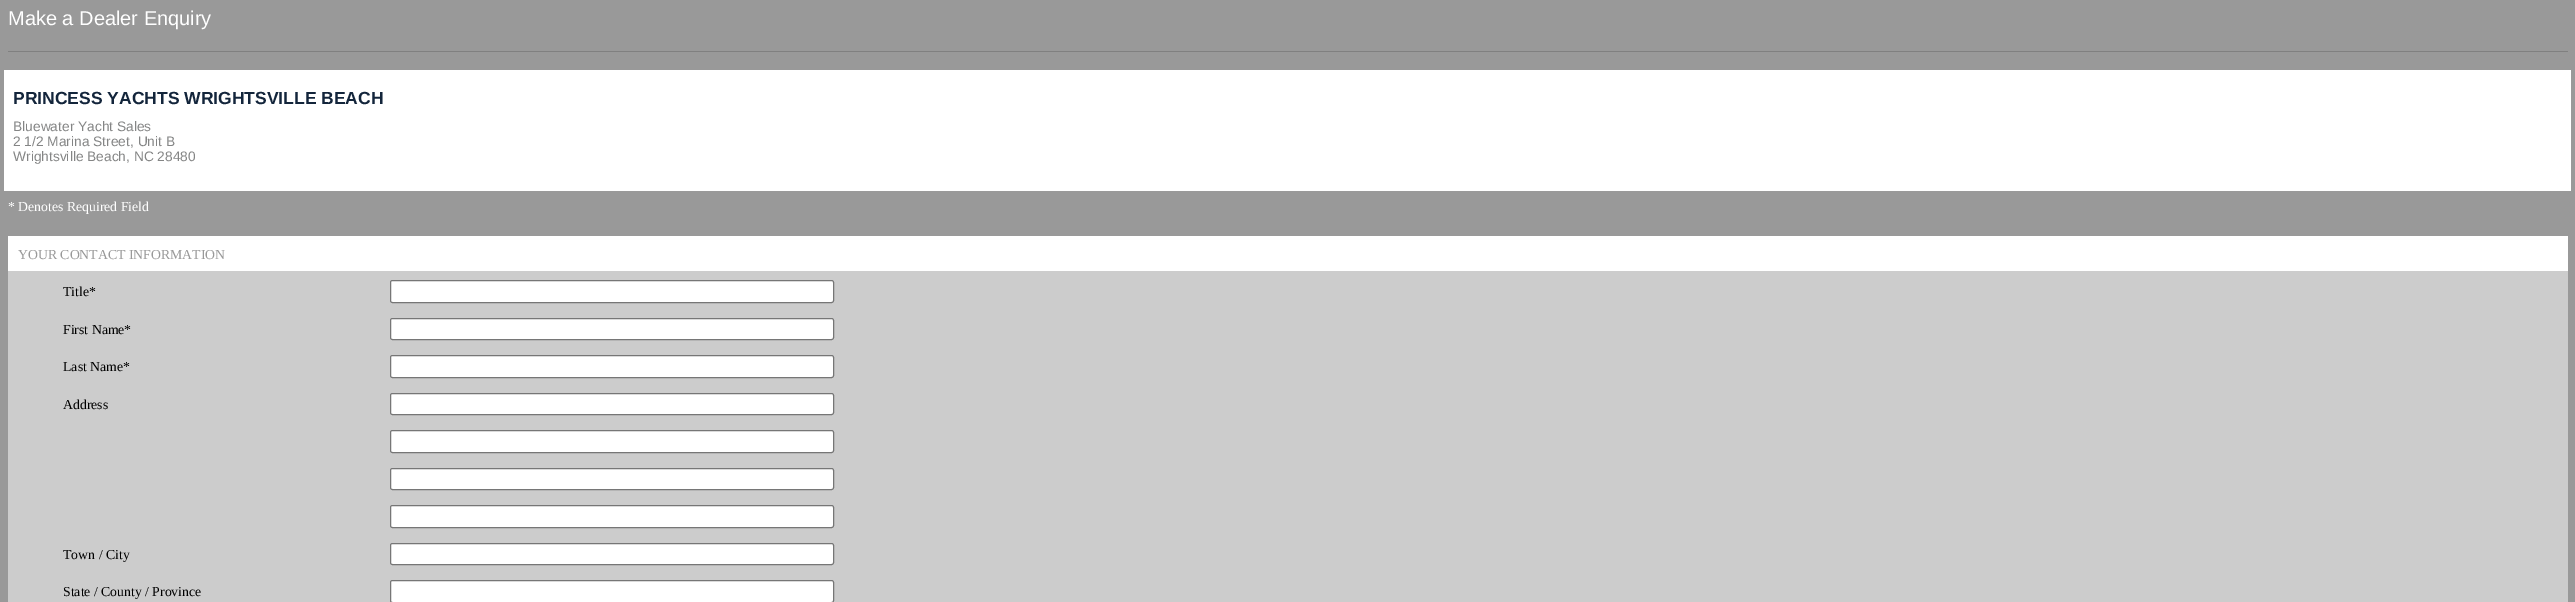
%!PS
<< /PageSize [2575 602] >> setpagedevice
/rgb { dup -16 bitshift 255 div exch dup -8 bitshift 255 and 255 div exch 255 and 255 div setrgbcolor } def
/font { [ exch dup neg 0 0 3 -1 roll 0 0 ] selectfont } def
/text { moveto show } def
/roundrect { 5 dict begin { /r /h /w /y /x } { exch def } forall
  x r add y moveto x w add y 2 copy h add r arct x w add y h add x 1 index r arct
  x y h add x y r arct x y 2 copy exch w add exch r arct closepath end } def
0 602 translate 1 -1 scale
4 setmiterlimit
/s1 { /LiberationSans-Regular 20 font 16#FFFFFF rgb } def
/s2 { /LiberationSans-Bold 17.5 font 16#13253B rgb } def
/s3 { /LiberationSans-Regular 13.75 font 16#848585 rgb } def
/s4 { /LiberationSerif-Regular 13.75 font 16#FFFFFF rgb } def
/s5 { /LiberationSerif-Regular 13.75 font 16#999999 rgb } def
/s6 { /LiberationSerif-Regular 13.75 font 16#000000 rgb } def
16#999999 rgb
0 0 2575 602 rectfill
s1
(Make a Dealer Enquiry) 8 25 text
16#808080 rgb
8 51 2560 1 rectfill
16#FFFFFF rgb
4 70 2567 121 rectfill
s2
(PRINCESS YACHTS WRIGHTSVILLE BEACH) 13 104 text
s3
(Bluewater Yacht Sales) 13 131 text
(2 1/2 Marina Street, Unit B) 13 146 text
(Wrightsville Beach, NC 28480) 13 161 text
s4
(* Denotes Required Field) 8 211 text
8 236 2560 35 rectfill
s5
(YOUR CONTACT INFORMATION) 18 259 text
16#CCCCCC rgb
8 271 2560 331 rectfill
s6
(Title*) 63 296 text
16#FFFFFF rgb
390.5 280.5 443 22 2 roundrect gsave fill grestore
16#767676 rgb
stroke
s6
(First Name*) 63 334 text
16#FFFFFF rgb
390.5 318.5 443 21 2 roundrect gsave fill grestore
16#767676 rgb
stroke
s6
(Last Name*) 63 371 text
16#FFFFFF rgb
390.5 355.5 443 22 2 roundrect gsave fill grestore
16#767676 rgb
stroke
s6
(Address) 63 409 text
16#FFFFFF rgb
390.5 393.5 443 21 2 roundrect gsave fill grestore
16#767676 rgb
stroke
16#FFFFFF rgb
390.5 430.5 443 22 2 roundrect gsave fill grestore
16#767676 rgb
stroke
16#FFFFFF rgb
390.5 468.5 443 21 2 roundrect gsave fill grestore
16#767676 rgb
stroke
16#FFFFFF rgb
390.5 505.5 443 22 2 roundrect gsave fill grestore
16#767676 rgb
stroke
s6
(Town / City) 63 559 text
16#FFFFFF rgb
390.5 543.5 443 21 2 roundrect gsave fill grestore
16#767676 rgb
stroke
s6
(State / County / Province) 63 596 text
16#FFFFFF rgb
390.5 580.5 443 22 2 roundrect gsave fill grestore
16#767676 rgb
stroke
showpage
